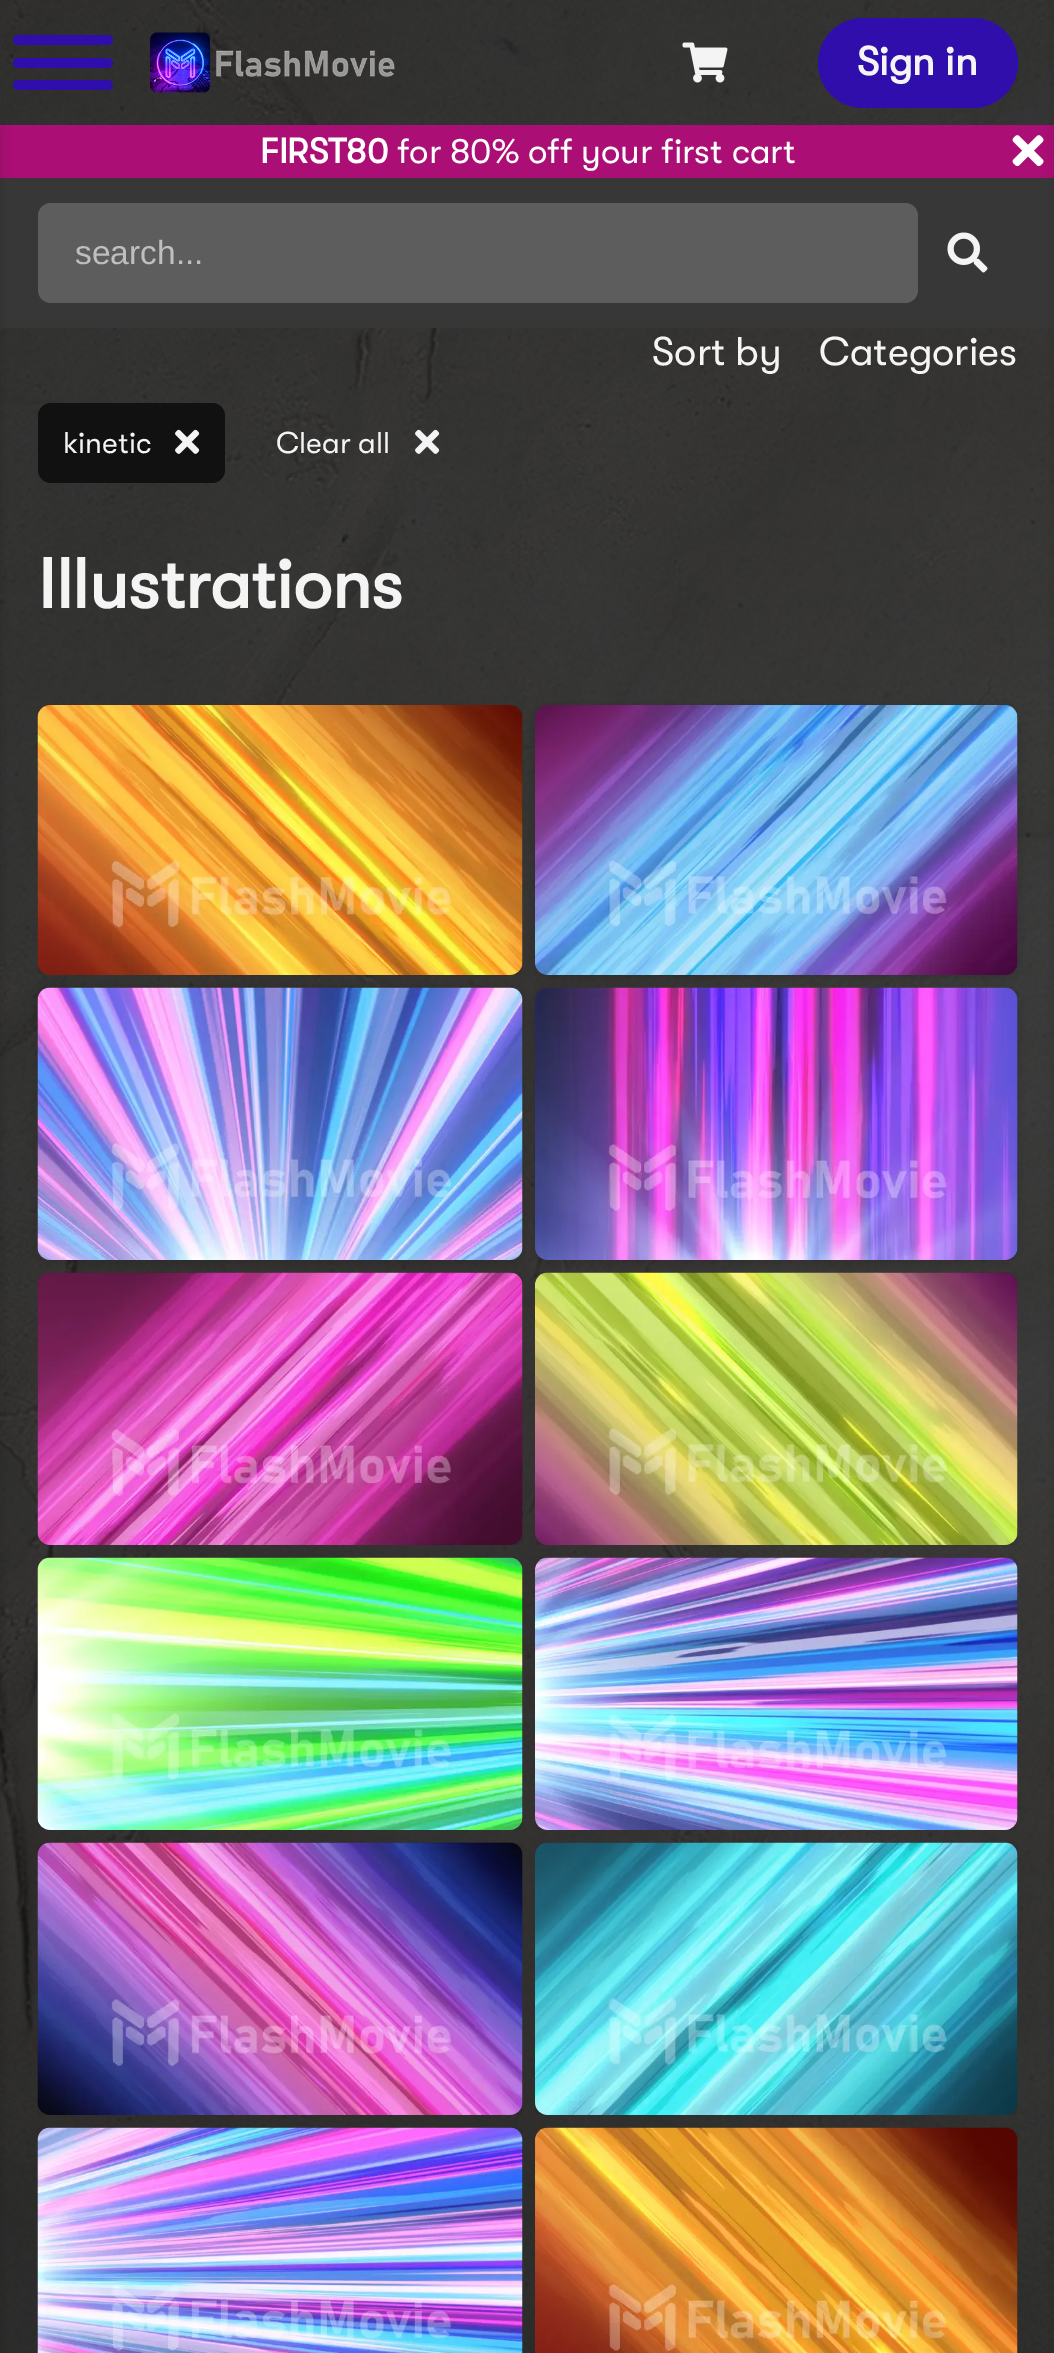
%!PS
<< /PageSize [1054 2353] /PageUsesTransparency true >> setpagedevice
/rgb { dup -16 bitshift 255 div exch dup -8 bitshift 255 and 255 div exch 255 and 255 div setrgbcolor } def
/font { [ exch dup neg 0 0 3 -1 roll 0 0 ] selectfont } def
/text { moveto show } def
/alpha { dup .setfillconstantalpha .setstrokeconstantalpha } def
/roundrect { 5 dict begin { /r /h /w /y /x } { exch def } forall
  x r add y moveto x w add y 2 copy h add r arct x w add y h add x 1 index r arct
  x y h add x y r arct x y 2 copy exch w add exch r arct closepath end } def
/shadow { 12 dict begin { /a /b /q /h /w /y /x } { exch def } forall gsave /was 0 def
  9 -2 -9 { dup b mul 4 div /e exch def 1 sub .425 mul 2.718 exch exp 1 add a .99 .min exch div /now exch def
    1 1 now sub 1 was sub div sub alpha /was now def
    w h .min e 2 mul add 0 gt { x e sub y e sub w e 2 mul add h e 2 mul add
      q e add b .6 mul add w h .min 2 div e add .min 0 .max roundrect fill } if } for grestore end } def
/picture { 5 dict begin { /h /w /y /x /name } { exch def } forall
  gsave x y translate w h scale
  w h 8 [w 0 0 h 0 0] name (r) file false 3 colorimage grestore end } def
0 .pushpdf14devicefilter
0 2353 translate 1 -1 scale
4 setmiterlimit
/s1 { /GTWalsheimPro-Bold 40 font 16#F4F4F4 rgb } def
/s2 { /GTWalsheimPro-Bold 35 font 16#FFFFFF rgb } def
/s3 { /GTWalsheimPro-Regular 35 font 16#FFFFFF rgb } def
/s4 { /LiberationSans-Regular 33.5 font 16#BFBFBF rgb } def
/s5 { /GTWalsheimPro-Regular 40 font 16#F4F4F4 rgb } def
/s6 { /GTWalsheimPro-Regular 30 font 16#F4F4F4 rgb } def
/s7 { /GTWalsheimPro-Bold 70 font 16#F4F4F4 rgb } def
16#FFFFFF rgb
0 0 1054 2353 rectfill
(pic1.raw) 0 0 1054 2353 picture
16#300EAC rgb
13 35 100 10 5 roundrect fill
13 58 100 10 5 roundrect fill
13 80 100 10 5 roundrect fill
(pic2.raw) 150 32 245 61 picture
(pic3.raw) 682 42 46 41 picture
818 18 200 90 45 roundrect fill
s1
(Sign in) 857 75 text
16#AB0E74 rgb
0 125 1054 53 rectfill
16#373737 rgb
0 178 1054 150 rectfill
16#000000 rgb
-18 128 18 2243 0 6 0.15 shadow
s2
(FIRST80) 260 163 text
s3
(for 80% off your first cart) 397 163 text
(pic4.raw) 1012 135 32 32 picture
16#5D5D5D rgb
38 203 880 100 13 roundrect fill
s4
(search...) 75 264 text
(pic5.raw) 947 232 41 41 picture
s5
(Sort by) 652 365 text
(Categories) 819 365 text
16#111111 rgb
38 403 187 80 13 roundrect fill
s6
(kinetic) 63 453 text
(pic6.raw) 175 429 25 25 picture
(Clear all) 276 453 text
(pic7.raw) 415 429 25 25 picture
s7
(Illustrations) 38 608 text
(pic8.raw) 37 705 486 270 picture
16#000000 rgb
535 708 483 270 13 6 0.15 shadow
(pic9.raw) 535 705 483 270 picture
38 990 485 273 13 6 0.15 shadow
(pic10.raw) 37 987 486 273 picture
535 990 483 273 13 6 0.15 shadow
(pic11.raw) 535 987 483 273 picture
(pic12.raw) 37 1272 486 273 picture
(pic13.raw) 535 1272 483 273 picture
(pic14.raw) 37 1557 486 273 picture
(pic15.raw) 535 1557 483 273 picture
(pic16.raw) 37 1842 486 273 picture
(pic17.raw) 535 1842 483 273 picture
(pic18.raw) 37 2127 486 226 picture
(pic19.raw) 535 2127 483 226 picture
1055 3 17 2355 0 6 0.15 shadow
.poppdf14devicefilter showpage
